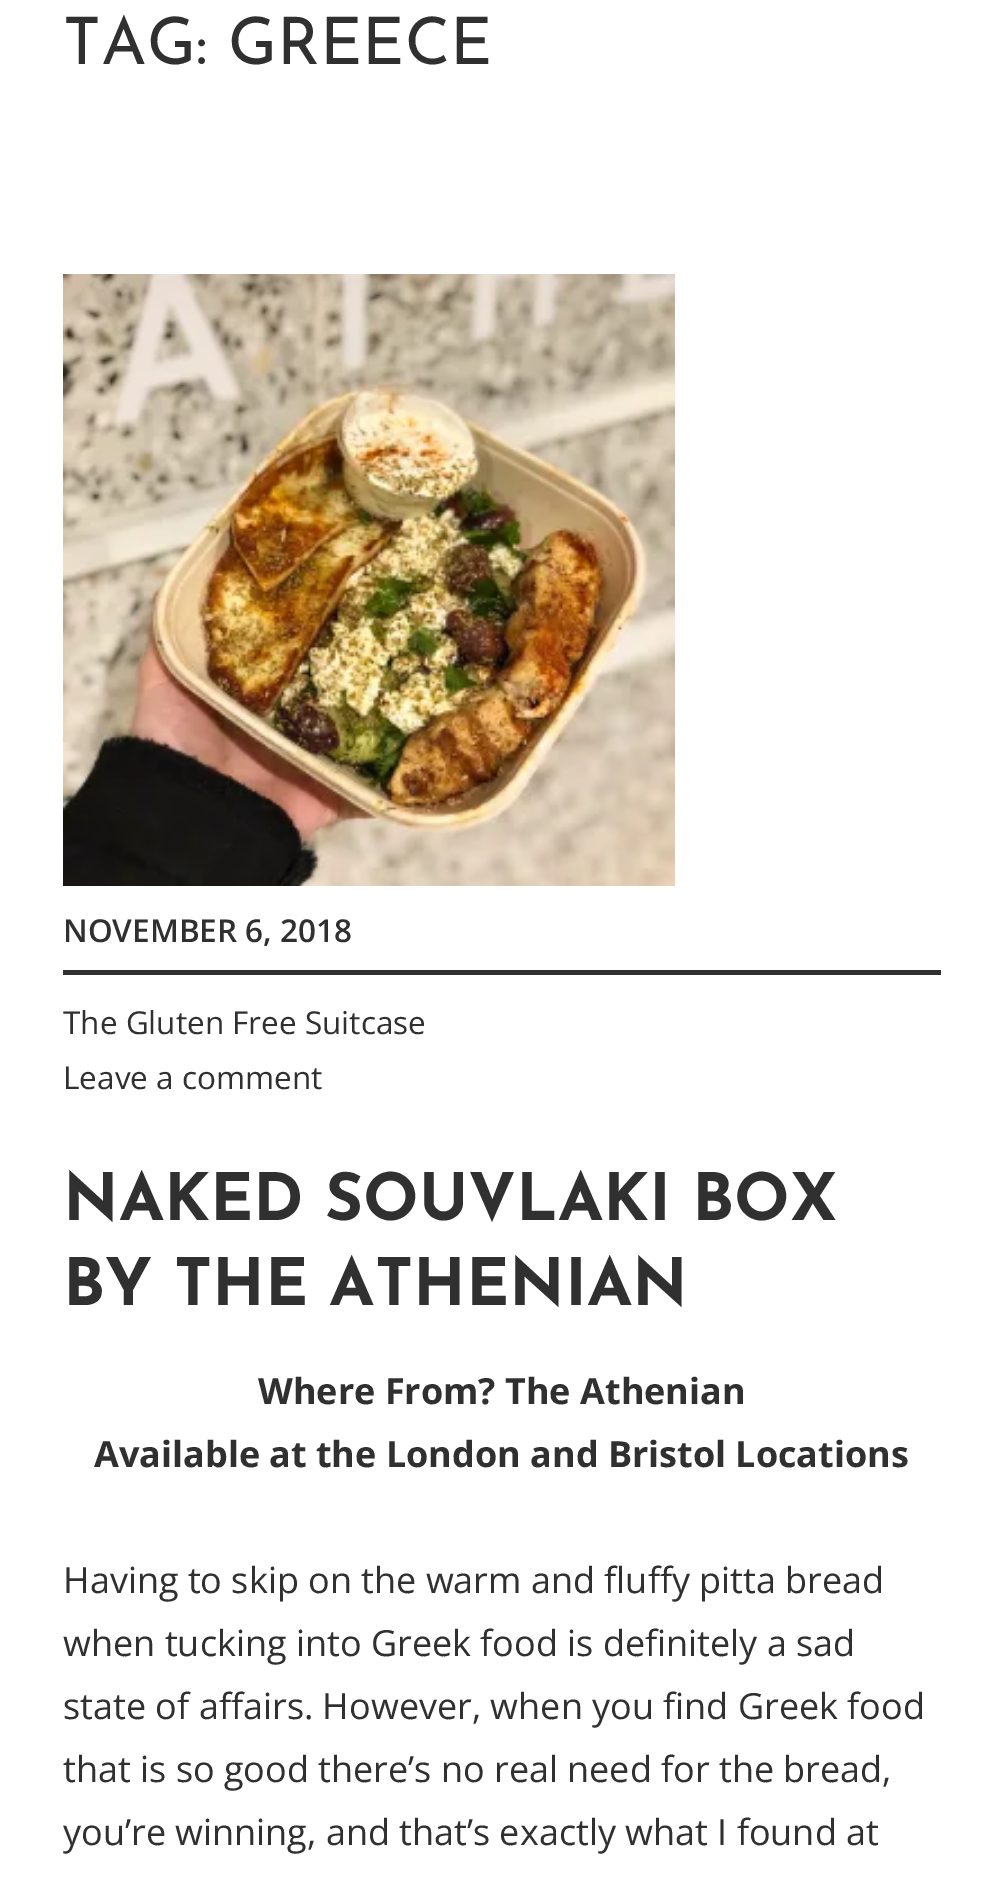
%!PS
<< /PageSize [1003 1880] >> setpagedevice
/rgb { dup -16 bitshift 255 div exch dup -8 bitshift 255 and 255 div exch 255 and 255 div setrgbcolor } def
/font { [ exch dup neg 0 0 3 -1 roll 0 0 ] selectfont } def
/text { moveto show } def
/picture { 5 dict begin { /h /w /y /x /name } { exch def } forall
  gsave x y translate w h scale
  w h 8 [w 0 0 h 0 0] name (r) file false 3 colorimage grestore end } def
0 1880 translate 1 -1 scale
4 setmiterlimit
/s1 { /JosefinSans-Regular 65.25 font 16#303030 rgb } def
/s2 { /OpenSans-SemiBold 31.5 font 16#303030 rgb } def
/s3 { /OpenSans-Regular 31.5 font 16#303030 rgb } def
/s4 { /JosefinSans-Bold 65.25 font 16#303030 rgb } def
/s5 { /OpenSans-Bold 36 font 16#303030 rgb } def
/s6 { /OpenSans-Regular 36 font 16#303030 rgb } def
16#FFFFFF rgb
0 0 1003 1880 rectfill
s1
(TAG: GREECE) 63 64 text
(pic1.raw) 63 274 612 612 picture
63 970 878 5 rectfill
s2
(NOVEMBER 6, 2018) 63 942 text
s3
(The Gluten Free Suitcase) 63 1034 text
(Leave a comment) 63 1089 text
s4
(NAKED SOUVLAKI BOX) 63 1220 text
(BY THE ATHENIAN) 63 1305 text
s5
(Where From? The Athenian) 258 1404 text
(Available at the London and Bristol Locations) 94 1467 text
s6
(Having to skip on the warm and fluffy pitta bread) 63 1593 text
(when tucking into Greek food is definitely a sad) 63 1656 text
(state of affairs. However, when you find Greek food) 63 1719 text
(that is so good there’s no real need for the bread,) 63 1782 text
(you’re winning, and that’s exactly what I found at) 63 1845 text
showpage
